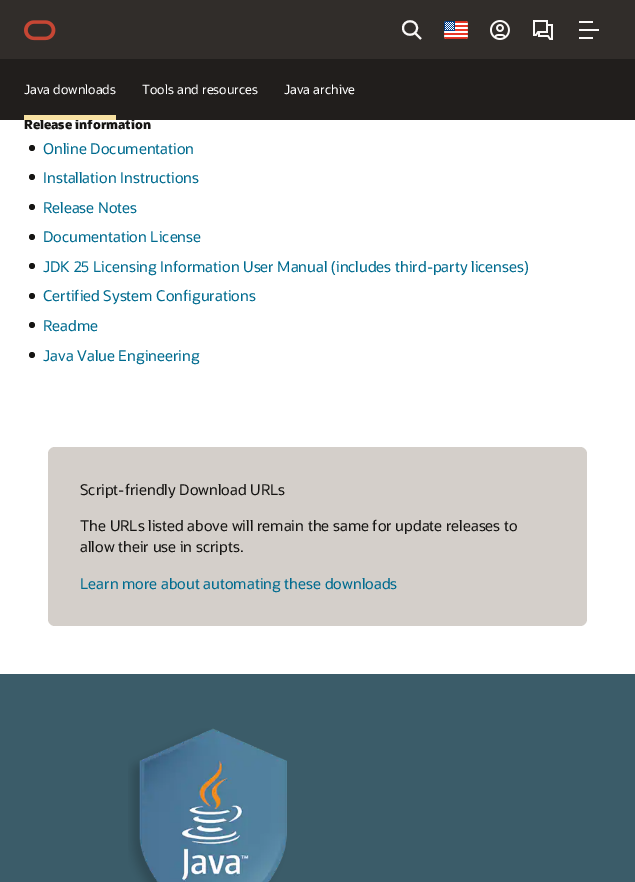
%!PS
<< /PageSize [635 882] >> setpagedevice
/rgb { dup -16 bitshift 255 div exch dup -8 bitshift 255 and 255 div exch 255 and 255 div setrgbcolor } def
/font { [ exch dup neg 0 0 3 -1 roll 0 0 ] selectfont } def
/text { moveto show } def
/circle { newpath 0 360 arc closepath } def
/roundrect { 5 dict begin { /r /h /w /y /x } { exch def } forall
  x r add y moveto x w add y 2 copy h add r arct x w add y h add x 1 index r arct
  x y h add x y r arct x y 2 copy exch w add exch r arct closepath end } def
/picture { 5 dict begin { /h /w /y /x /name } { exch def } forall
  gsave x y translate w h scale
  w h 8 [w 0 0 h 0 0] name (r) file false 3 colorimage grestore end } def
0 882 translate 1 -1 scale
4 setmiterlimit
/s1 { /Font-ExtraBold 12.75 font 16#161513 rgb } def
/s2 { /Font-Regular 12.75 font 16#FFFFFF rgb } def
/s3 { /Font-Regular 14.8 font 16#006B8F rgb } def
/s4 { /Font-Regular 14.8 font 16#161513 rgb } def
16#FFFFFF rgb
0 0 635 882 rectfill
16#312D2A rgb
0 0 635 59 rectfill
(pic1.raw) 24 20 32 21 picture
16#FBF9F8 rgb
2 setlinewidth
415 33 moveto 421 39 lineto 417 28 moveto 417 37 403 37 403 28 curveto 403 19 417 19 417 28 curveto closepath stroke
(pic2.raw) 444 21 24 18 picture
(pic3.raw) 490 20 20 20 picture
(pic4.raw) 533 20 20 20 picture
(pic5.raw) 579 21 20 18 picture
16#201E1C rgb
0 59 635 1 rectfill
s1
(Release information) 24 129 text
16#211E1C rgb
0 60 635 60 rectfill
s2
(Java downloads) 24 94 text
16#F7E0A1 rgb
24 115 92 5 rectfill
s2
(Tools and resources) 142 94 text
(Java archive) 284 94 text
16#161513 rgb
32 148 3 circle fill
s3
(Online Documentation) 43 154 text
16#161513 rgb
32 177 3 circle fill
s3
(Installation Instructions) 43 183 text
16#161513 rgb
32 207 3 circle fill
s3
(Release Notes) 43 213 text
16#161513 rgb
32 237 3 circle fill
s3
(Documentation License) 43 242 text
16#161513 rgb
32 266 3 circle fill
s3
(JDK 25 Licensing Information User Manual \(includes third-party licenses\)) 43 272 text
16#161513 rgb
32 296 3 circle fill
s3
(Certified System Configurations) 43 301 text
16#161513 rgb
32 325 3 circle fill
s3
(Readme) 43 331 text
16#161513 rgb
32 355 3 circle fill
s3
(Java Value Engineering) 43 361 text
16#D4CFCA rgb
48 447 539 179 7 roundrect fill
s4
(Script-friendly Download URLs) 80 495 text
(The URLs listed above will remain the same for update releases to) 80 531 text
(allow their use in scripts.) 80 552 text
s3
(Learn more about automating these downloads) 80 589 text
16#3B5C69 rgb
0 674 635 208 rectfill
(pic6.raw) 128 728 159 154 picture
showpage
